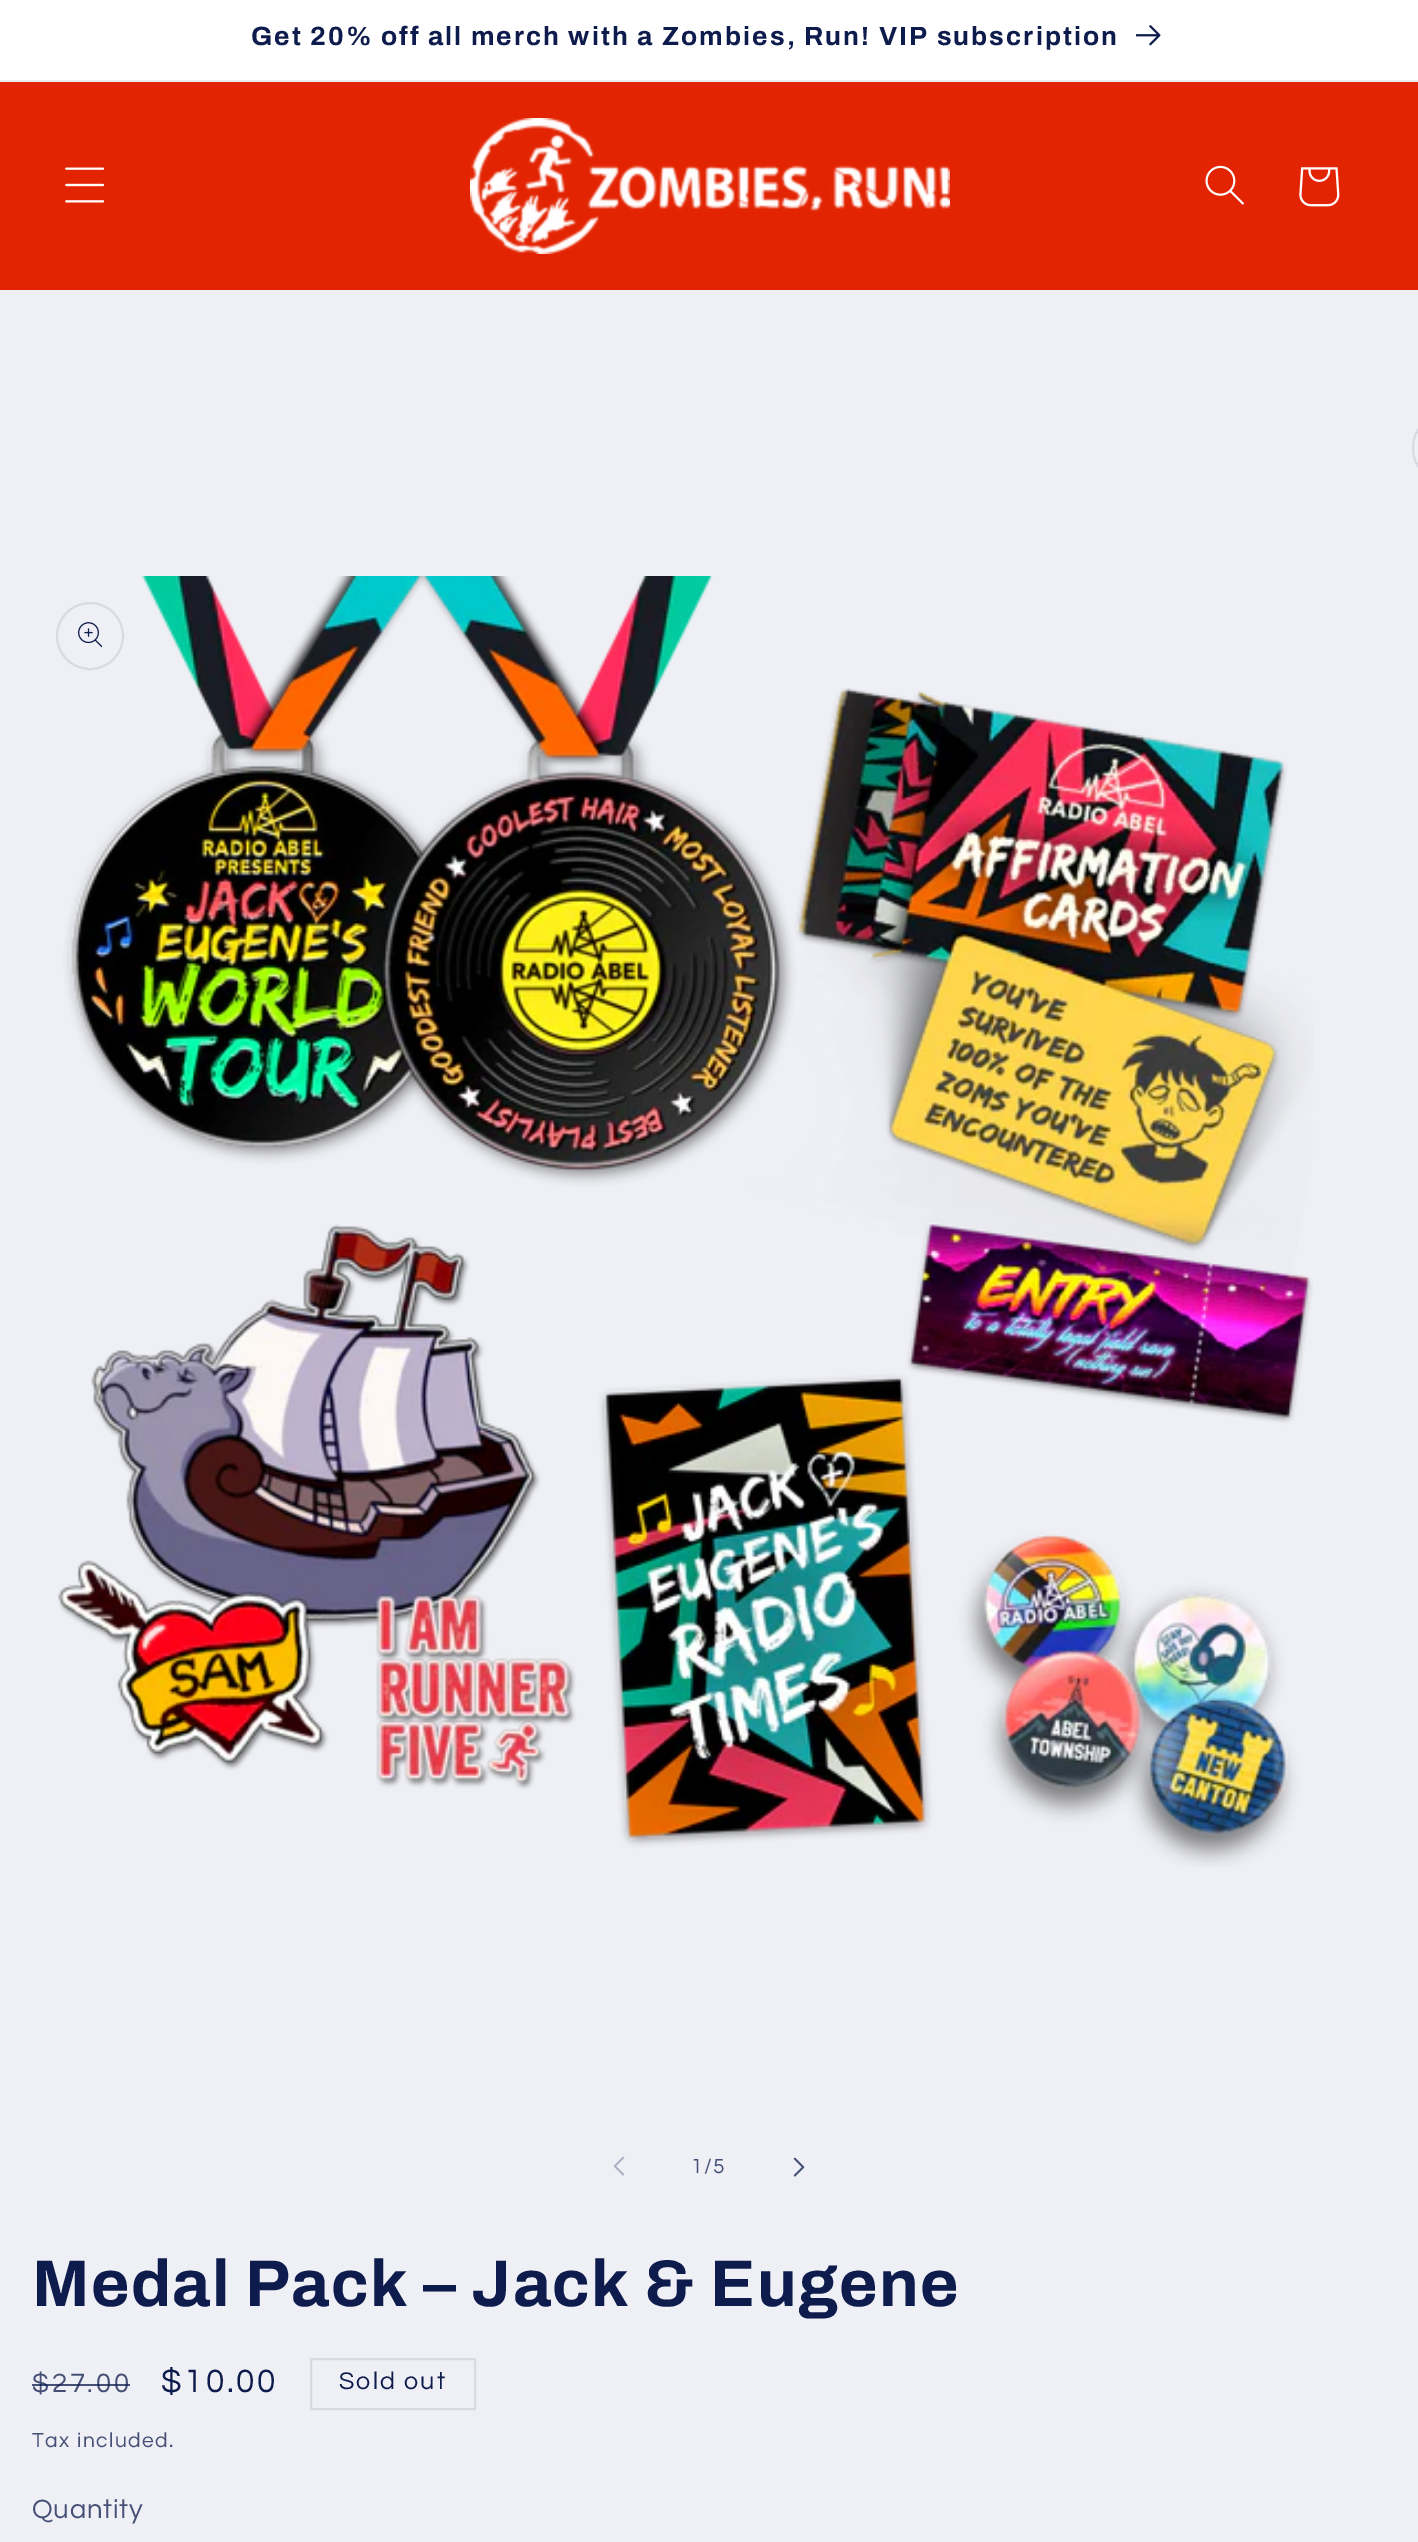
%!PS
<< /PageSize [1418 2542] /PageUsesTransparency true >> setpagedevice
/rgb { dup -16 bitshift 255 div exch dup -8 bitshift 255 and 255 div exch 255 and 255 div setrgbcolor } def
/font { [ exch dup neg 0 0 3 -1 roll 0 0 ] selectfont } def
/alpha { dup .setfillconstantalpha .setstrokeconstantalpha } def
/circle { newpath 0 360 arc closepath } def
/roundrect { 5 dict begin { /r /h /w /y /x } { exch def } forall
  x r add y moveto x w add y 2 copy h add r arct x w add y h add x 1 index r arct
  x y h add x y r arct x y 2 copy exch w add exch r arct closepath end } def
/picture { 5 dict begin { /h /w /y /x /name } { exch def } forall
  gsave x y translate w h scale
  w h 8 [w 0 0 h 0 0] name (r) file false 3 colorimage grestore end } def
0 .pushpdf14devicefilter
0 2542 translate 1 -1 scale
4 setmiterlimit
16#EFF0F5 rgb
0 0 1418 2542 rectfill
16#FFFFFF rgb
0 0 1418 80 rectfill
16#ECEDF1 rgb
0 80 1418 2 rectfill
/Archivo-Bold 26.4 font
16#0E1B4D rgb
251 45 moveto 2.1 0 (Get 20% off all merch with a Zombies, Run! VIP subscription) ashow
(pic1.raw) 1136 25 25 21 picture
16#E32402 rgb
0 82 1418 208 rectfill
(pic2.raw) 65 167 40 36 picture
(pic3.raw) 470 118 480 136 picture
(pic4.raw) 1205 165 39 40 picture
(pic5.raw) 1299 167 41 40 picture
16#D8DBE4 rgb
2 setlinewidth
1413 415 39 66 32 roundrect stroke
(pic6.raw) 58 576 1255 1291 picture
90 636 33 circle stroke
(pic7.raw) 78 622 24 26 picture
(pic8.raw) 613 2156 12 20 picture
/Questrial-Regular 21 font
16#465077 rgb
691 2173 moveto 1.5 0 (1/5) ashow
(pic9.raw) 793 2157 12 20 picture
/Archivo-Bold 66 font
16#0E1B4D rgb
32 2306 moveto 1.3 0 (Medal Pack – Jack & Eugene) ashow
/Questrial-Regular 27.5 font
16#465077 rgb
32 2392 moveto 2.75 0 ($27.00) ashow
0.75 alpha
16#0E1B4D rgb
32 2384 98 2 rectfill
/Questrial-Regular 33.5 font
1 alpha
161 2392 moveto 2.75 0 ($10.00) ashow
16#D8DBE4 rgb
311 2359 164 50 rectstroke
/Questrial-Regular 25 font
16#0E1B4D rgb
339 2389 moveto 2.1 0 (Sold out) ashow
/Questrial-Regular 21 font
16#465077 rgb
32 2447 moveto 1.5 0 (Tax included.) ashow
/Questrial-Regular 27.5 font
32 2518 moveto 0.75 0 (Quantity) ashow
.poppdf14devicefilter showpage
